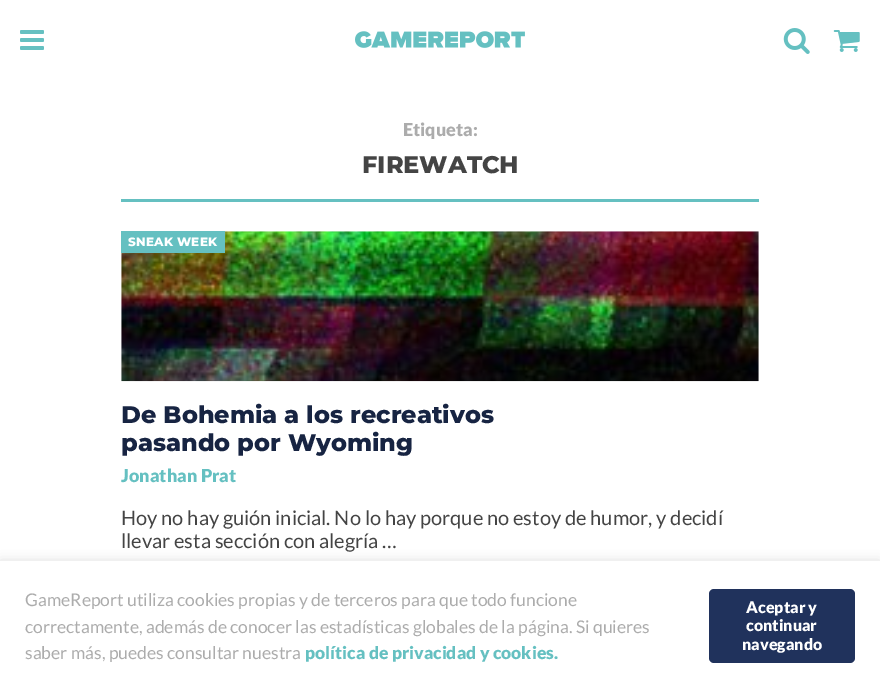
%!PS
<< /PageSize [880 690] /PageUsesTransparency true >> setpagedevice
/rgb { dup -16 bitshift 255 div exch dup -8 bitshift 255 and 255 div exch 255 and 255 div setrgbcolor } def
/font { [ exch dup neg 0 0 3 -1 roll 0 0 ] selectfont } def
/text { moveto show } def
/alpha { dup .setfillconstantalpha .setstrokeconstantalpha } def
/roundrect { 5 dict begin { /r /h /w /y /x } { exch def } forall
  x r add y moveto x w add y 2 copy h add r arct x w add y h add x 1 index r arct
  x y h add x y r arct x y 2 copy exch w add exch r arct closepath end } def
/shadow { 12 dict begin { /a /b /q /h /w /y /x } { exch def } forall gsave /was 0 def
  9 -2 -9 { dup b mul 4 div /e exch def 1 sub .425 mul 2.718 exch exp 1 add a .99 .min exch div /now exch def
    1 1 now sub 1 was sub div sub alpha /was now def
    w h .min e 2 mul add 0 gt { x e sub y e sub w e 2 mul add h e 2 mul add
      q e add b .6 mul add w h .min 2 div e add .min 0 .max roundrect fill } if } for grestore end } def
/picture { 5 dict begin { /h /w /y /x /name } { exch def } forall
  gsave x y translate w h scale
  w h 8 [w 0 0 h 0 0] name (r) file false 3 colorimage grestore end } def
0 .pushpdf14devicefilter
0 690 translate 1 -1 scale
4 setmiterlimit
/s1 { /Lato-Black 18 font 16#ACACAC rgb } def
/s2 { /Montserrat-Thin 24 font 16#444444 rgb } def
/s3 { /Montserrat-Thin 24 font 16#172442 rgb } def
/s4 { /Lato-Black 18 font 16#65C0C1 rgb } def
/s5 { /Lato-Regular 20 font 16#444444 rgb } def
/s6 { /Lato-Regular 17.5 font 16#ACACAC rgb } def
/s7 { /Lato-Black 17.5 font 16#65C0C1 rgb } def
/s8 { /Lato-Black 16 font 16#FFFFFF rgb } def
16#FFFFFF rgb
0 0 880 690 rectfill
(pic1.raw) 20 30 24 20 picture
(pic2.raw) 355 31 170 17 picture
(pic3.raw) 783 28 27 26 picture
(pic4.raw) 833 30 27 22 picture
16#65C0C1 rgb
121 199 638 3 rectfill
s1
(Etiqueta:) 403 136 text
s2
(FIREWATCH) 362 173 text
(pic5.raw) 121 231 638 151 picture
16#65C0C1 rgb
121 231 104 22 rectfill
/Montserrat-Thin 12 font
16#FFFFFF rgb
128 246 moveto 0.25 0 (SNEAK WEEK) ashow
s3
(De Bohemia a los recreativos) 121 423 text
(pasando por Wyoming) 121 451 text
s4
(Jonathan Prat) 121 482 text
s5
(Hoy no hay guión inicial. No lo hay porque no estoy de humor, y decidí) 121 525 text
(llevar esta sección con alegría …) 121 548 text
16#171717 rgb
1 563 878 126 0 6 0.2 shadow
16#FFFFFF rgb
0 561 880 129 rectfill
s6
(GameReport utiliza cookies propias y de terceros para que todo funcione) 25 606 text
(correctamente, además de conocer las estadísticas globales de la página. Si quieres) 25 633 text
(saber más, puedes consultar nuestra) 25 659 text
s7
(política de privacidad y cookies.) 305 659 text
16#20325C rgb
709 589 146 74 5 roundrect fill
s8
(Aceptar y) 746 613 text
(continuar) 746 631 text
(navegando) 742 650 text
.poppdf14devicefilter showpage
